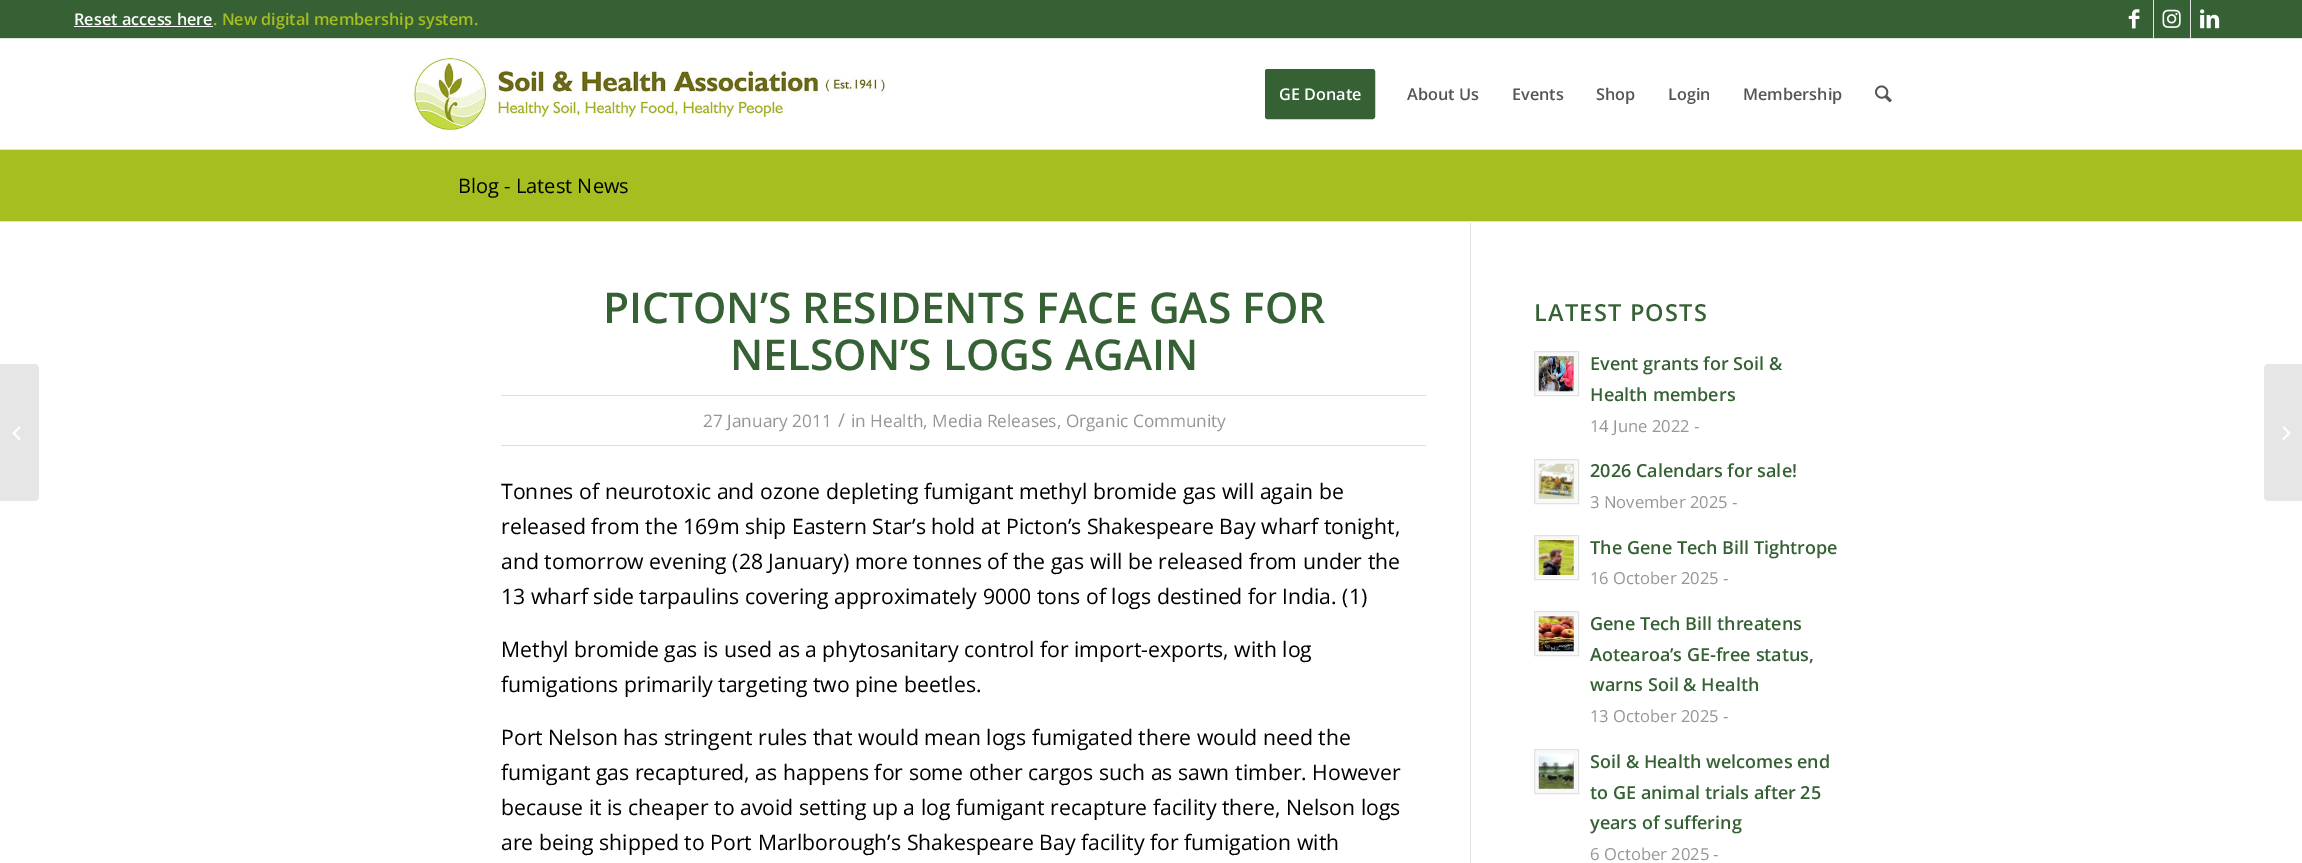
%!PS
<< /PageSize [2302 863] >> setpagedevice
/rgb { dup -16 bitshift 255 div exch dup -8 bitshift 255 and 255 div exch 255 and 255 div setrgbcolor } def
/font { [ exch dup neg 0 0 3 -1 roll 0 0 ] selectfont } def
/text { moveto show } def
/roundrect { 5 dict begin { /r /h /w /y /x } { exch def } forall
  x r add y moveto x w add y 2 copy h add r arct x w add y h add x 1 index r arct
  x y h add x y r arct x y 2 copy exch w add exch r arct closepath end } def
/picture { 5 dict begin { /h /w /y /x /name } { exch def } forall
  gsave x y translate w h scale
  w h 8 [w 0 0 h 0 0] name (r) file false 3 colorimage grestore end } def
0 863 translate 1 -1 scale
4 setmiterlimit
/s1 { /OpenSans-SemiBold 16.25 font 16#FFFFFF rgb } def
/s2 { /OpenSans-SemiBold 16.25 font 16#A6BE1F rgb } def
/s3 { /OpenSans-SemiBold 16.25 font 16#555555 rgb } def
/s4 { /OpenSans-Regular 20 font 16#000000 rgb } def
/s5 { /OpenSans-SemiBold 42.5 font 16#366135 rgb } def
/s6 { /OpenSans-Regular 17.25 font 16#969696 rgb } def
/s7 { /OpenSans-Regular 19 font 16#969696 rgb } def
/s8 { /OpenSans-Regular 21.25 font 16#000000 rgb } def
/s9 { /OpenSans-SemiBold 18 font 16#366135 rgb } def
/s10 { /OpenSans-Regular 16.6 font 16#969696 rgb } def
16#FFFFFF rgb
0 0 2302 863 rectfill
16#366135 rgb
0 0 2302 38 rectfill
16#E0E4E0 rgb
0 38 2302 1 rectfill
s1
(Reset access here) 74 25 text
74 26 139 1 rectfill
s2
(. New digital membership system.) 213 25 text
16#E0E4E0 rgb
2153 0 1 38 rectfill
(pic1.raw) 2128 9 12 20 picture
2190 0 1 38 rectfill
(pic2.raw) 2162 9 19 19 picture
(pic3.raw) 2200 9 20 20 picture
0 149 2302 1 rectfill
(pic4.raw) 414 57 471 73 picture
16#366135 rgb
1266.5 70.5 107 47 1 roundrect gsave fill grestore
3 setlinewidth
stroke
s1
(GE Donate) 1279 100 text
s3
(About Us) 1407 100 text
(Events) 1512 100 text
(Shop) 1596 100 text
(Login) 1668 100 text
(Membership) 1743 100 text
(pic5.raw) 1875 85 17 18 picture
16#E6E6E6 rgb
0 364 moveto 34 364 lineto 37 364 39 366 39 369 curveto 39 496 lineto 39 499 37 501 34 501 curveto 0 501 lineto closepath fill
(pic6.raw) 12 426 9 14 picture
16#A6BE1F rgb
0 150 2302 71 rectfill
s4
(Blog - Latest News) 458 193 text
16#E0E4E0 rgb
0 221 2302 1 rectfill
1470 223 1 640 rectfill
s5
(PICTON’S RESIDENTS FACE GAS FOR) 603 323 text
(NELSON’S LOGS AGAIN) 730 370 text
16#DEDEDE rgb
501 395 925 1 rectfill
501 445 925 1 rectfill
s6
(27 January 2011) 703 427 text
s7
(/) 838 427 text
s6
(in Health, Media Releases, Organic Community) 851 427 text
s8
(Tonnes of neurotoxic and ozone depleting fumigant methyl bromide gas will again be) 501 499 text
(released from the 169m ship Eastern Star’s hold at Picton’s Shakespeare Bay wharf tonight,) 501 534 text
(and tomorrow evening \(28 January\) more tonnes of the gas will be released from under the) 501 569 text
(13 wharf side tarpaulins covering approximately 9000 tons of logs destined for India. \(1\)) 501 604 text
(Methyl bromide gas is used as a phytosanitary control for import-exports, with log) 501 657 text
(fumigations primarily targeting two pine beetles.) 501 692 text
(Port Nelson has stringent rules that would mean logs fumigated there would need the) 501 745 text
(fumigant gas recaptured, as happens for some other cargos such as sawn timber. However) 501 780 text
(because it is cheaper to avoid setting up a log fumigant recapture facility there, Nelson logs) 501 815 text
(are being shipped to Port Marlborough’s Shakespeare Bay facility for fumigation with) 501 850 text
/OpenSans-SemiBold 23.5 font
16#366135 rgb
1534 321 moveto 1.25 0 (LATEST POSTS) ashow
16#F8F8F8 rgb
1534.5 351.5 moveto 1578.5 351.5 lineto 1578.5 395.5 lineto 1534.5 395.5 lineto closepath gsave fill grestore
16#E0E4E0 rgb
1 setlinewidth
stroke
(pic7.raw) 1538 356 36 36 picture
s9
(Event grants for Soil &) 1590 370 text
(Health members) 1590 401 text
s10
(14 June 2022 -) 1590 432 text
16#F8F8F8 rgb
1534.5 459.5 moveto 1578.5 459.5 lineto 1578.5 503.5 lineto 1534.5 503.5 lineto closepath gsave fill grestore
16#E0E4E0 rgb
stroke
(pic8.raw) 1538 463 36 36 picture
s9
(2026 Calendars for sale!) 1590 477 text
s10
(3 November 2025 -) 1590 508 text
16#F8F8F8 rgb
1534.5 535.5 moveto 1578.5 535.5 lineto 1578.5 579.5 lineto 1534.5 579.5 lineto closepath gsave fill grestore
16#E0E4E0 rgb
stroke
(pic9.raw) 1538 540 36 35 picture
s9
(The Gene Tech Bill Tightrope) 1590 554 text
s10
(16 October 2025 -) 1590 584 text
16#F8F8F8 rgb
1534.5 611.5 moveto 1578.5 611.5 lineto 1578.5 655.5 lineto 1534.5 655.5 lineto closepath gsave fill grestore
16#E0E4E0 rgb
stroke
(pic10.raw) 1538 616 36 36 picture
s9
(Gene Tech Bill threatens) 1590 630 text
(Aotearoa’s GE-free status,) 1590 661 text
(warns Soil & Health) 1590 691 text
s10
(13 October 2025 -) 1590 722 text
16#F8F8F8 rgb
1534.5 749.5 moveto 1578.5 749.5 lineto 1578.5 793.5 lineto 1534.5 793.5 lineto closepath gsave fill grestore
16#E0E4E0 rgb
stroke
(pic11.raw) 1538 754 36 35 picture
s9
(Soil & Health welcomes end) 1590 768 text
(to GE animal trials after 25) 1590 799 text
(years of suffering) 1590 829 text
s10
(6 October 2025 -) 1590 860 text
16#E6E6E6 rgb
2269 364 moveto 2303 364 lineto 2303 501 lineto 2269 501 lineto 2266 501 2264 499 2264 496 curveto 2264 369 lineto 2264 366 2266 364 2269 364 curveto closepath fill
(pic12.raw) 2282 426 9 14 picture
showpage
